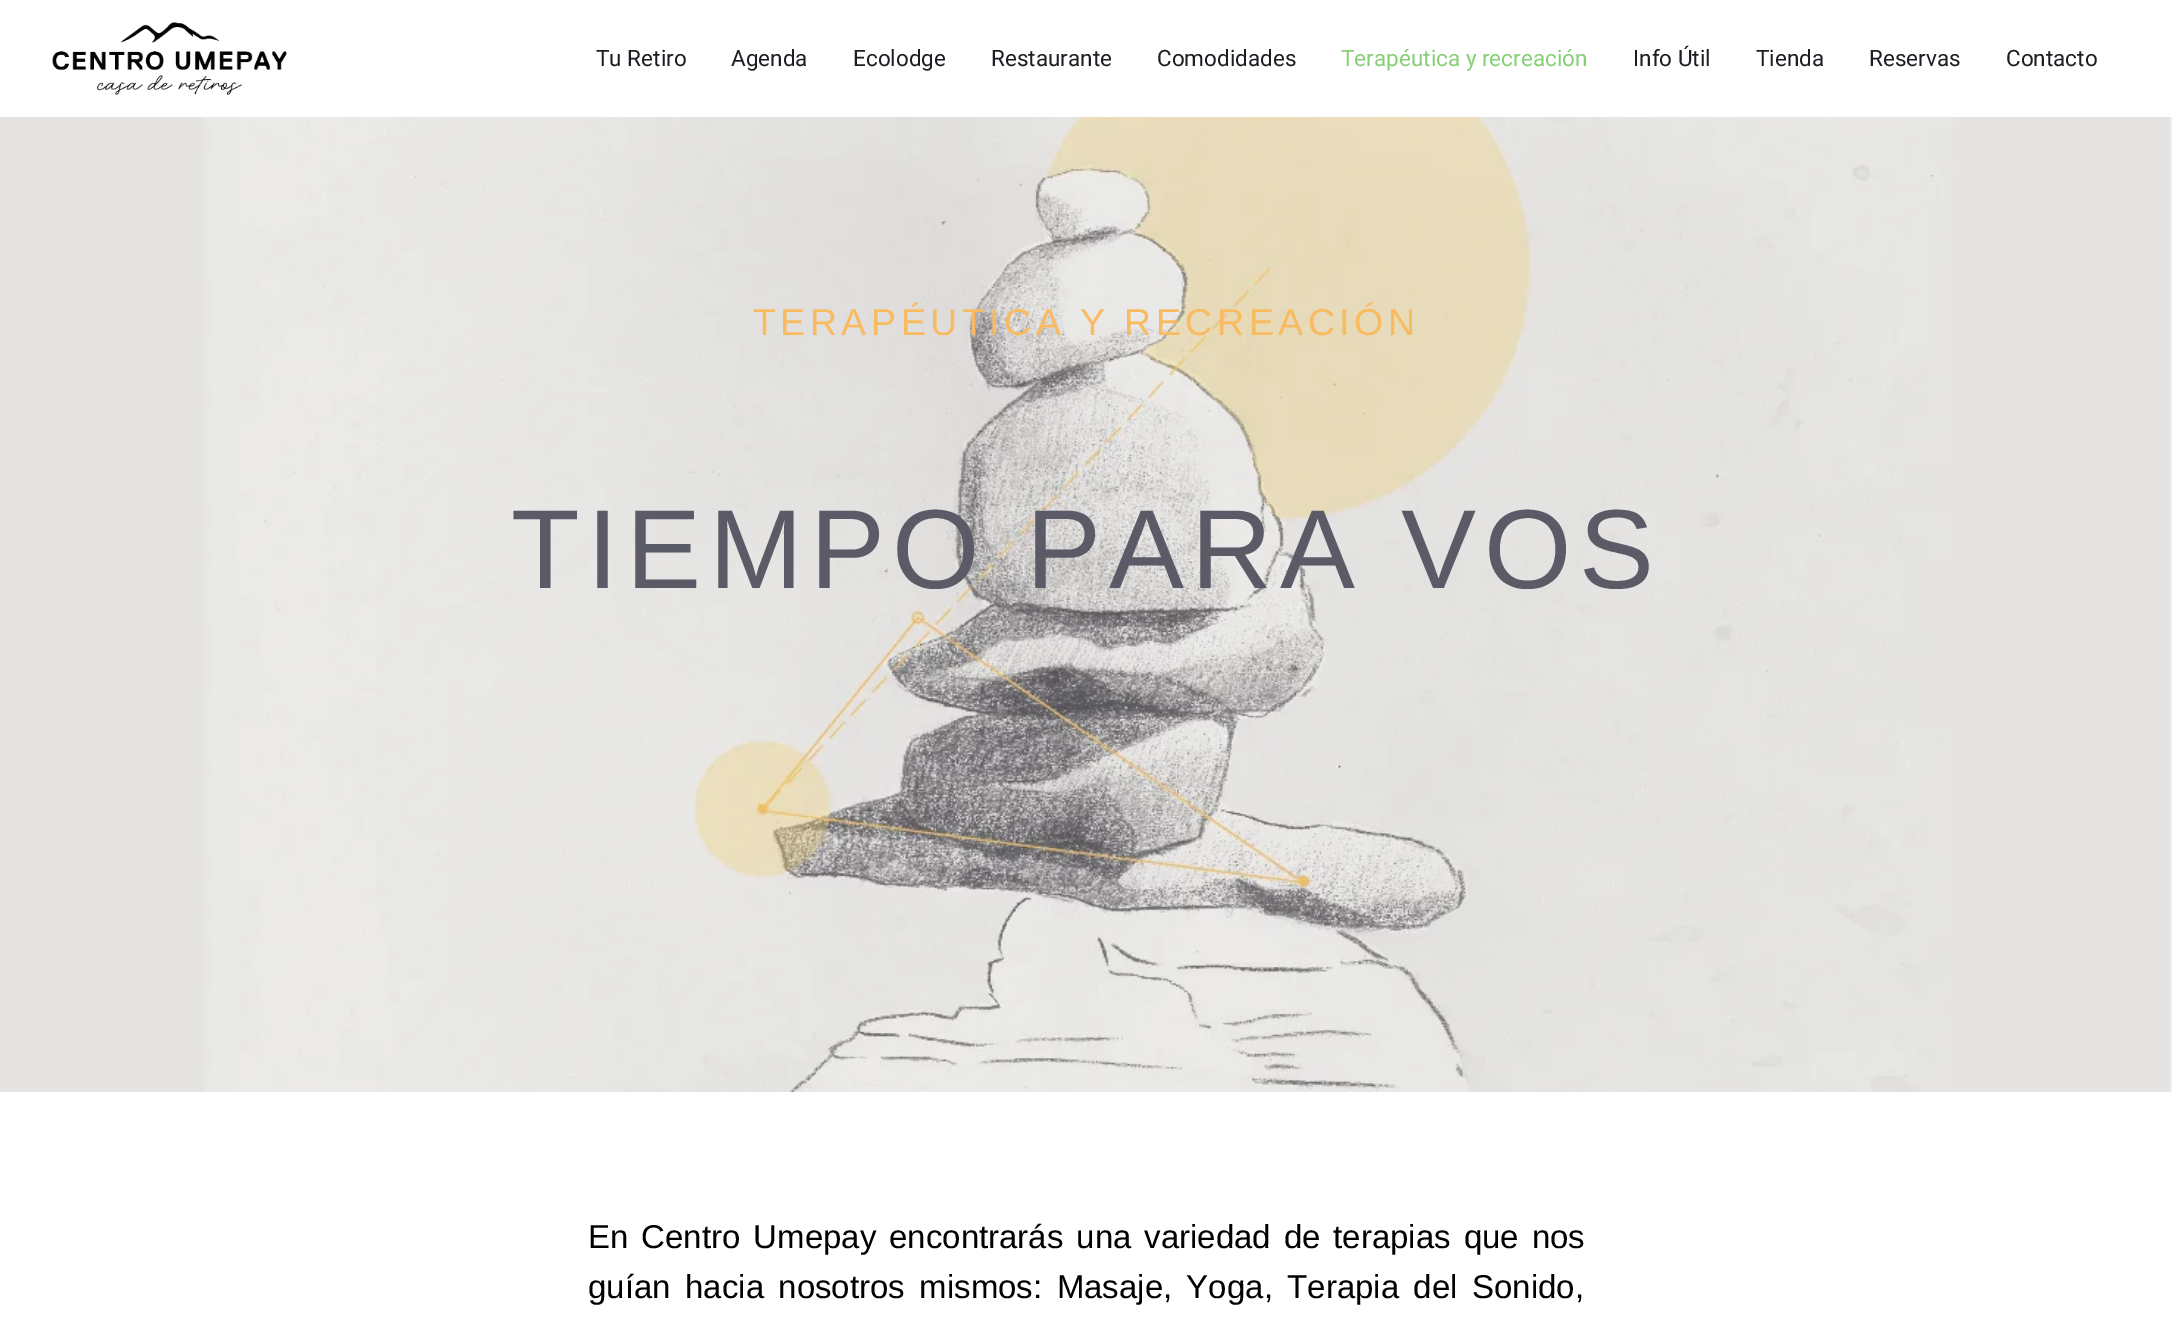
%!PS
<< /PageSize [2172 1318] >> setpagedevice
/rgb { dup -16 bitshift 255 div exch dup -8 bitshift 255 and 255 div exch 255 and 255 div setrgbcolor } def
/font { [ exch dup neg 0 0 3 -1 roll 0 0 ] selectfont } def
/text { moveto show } def
/picture { 5 dict begin { /h /w /y /x /name } { exch def } forall
  gsave x y translate w h scale
  w h 8 [w 0 0 h 0 0] name (r) file false 3 colorimage grestore end } def
0 1318 translate 1 -1 scale
4 setmiterlimit
/s1 { /Roboto-Regular 22.5 font 16#1D1D23 rgb } def
/s2 { /Roboto-Regular 22.5 font 16#87CF76 rgb } def
16#FFFFFF rgb
0 0 2172 1318 rectfill
(pic1.raw) 52 22 235 73 picture
s1
(Tu Retiro) 596 66 text
(Agenda) 731 66 text
(Ecolodge) 853 66 text
(Restaurante) 991 66 text
(Comodidades) 1157 66 text
s2
(Terapéutica y recreación) 1341 66 text
s1
(Info Útil) 1633 66 text
(Tienda) 1756 66 text
(Reservas) 1869 66 text
(Contacto) 2006 66 text
16#E5E4E2 rgb
0 117 204 975 rectfill
(pic2.raw) 204 117 1968 975 picture
/LiberationSans-Regular 37.5 font
16#F9BB60 rgb
753 335 moveto 4.5 0 (TERAPÉUTICA Y RECREACIÓN) ashow
/LiberationSans-Regular 112.5 font
16#5A5B67 rgb
511 588 moveto 7.5 0 (TIEMPO PARA VOS) ashow
/LiberationSans-Regular 33 font
16#000000 rgb
588 1248 moveto 3.75 0 32 (En Centro Umepay encontrarás una variedad de terapias que nos) widthshow
588 1298 moveto 5.25 0 32 (guían hacia nosotros mismos: Masaje, Yoga, Terapia del Sonido,) widthshow
showpage
